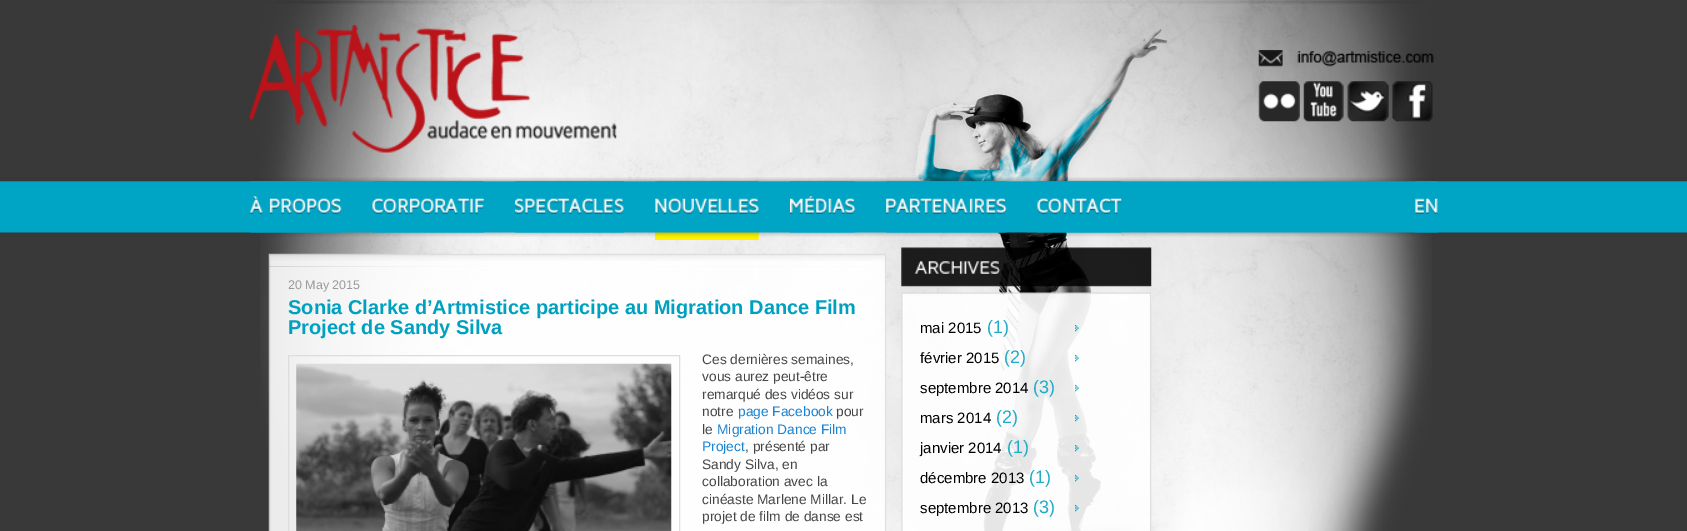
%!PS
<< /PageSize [1687 531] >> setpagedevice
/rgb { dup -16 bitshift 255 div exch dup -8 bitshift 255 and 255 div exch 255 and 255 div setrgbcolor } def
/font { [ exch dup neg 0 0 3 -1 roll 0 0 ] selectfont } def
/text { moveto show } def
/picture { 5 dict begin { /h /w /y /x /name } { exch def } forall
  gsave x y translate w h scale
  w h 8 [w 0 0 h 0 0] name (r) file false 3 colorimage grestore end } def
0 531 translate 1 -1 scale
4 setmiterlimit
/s1 { /LiberationSans-Regular 12.5 font 16#9A9A9A rgb } def
/s2 { /LiberationSans-Bold 20 font 16#00A1C0 rgb } def
/s3 { /LiberationSans-Regular 13.75 font 16#464646 rgb } def
/s4 { /LiberationSans-Regular 13.75 font 16#1982D1 rgb } def
/s5 { /LiberationSans-Regular 15 font 16#000000 rgb } def
/s6 { /LiberationSans-Regular 18 font 16#1FACC7 rgb } def
16#393939 rgb
0 0 1687 531 rectfill
(pic1.raw) 260 0 1172 531 picture
(pic2.raw) 250 25 367 128 picture
(pic3.raw) 1258 50 176 17 picture
(pic4.raw) 1258 81 42 41 picture
(pic5.raw) 1303 81 41 41 picture
(pic6.raw) 1347 81 42 41 picture
(pic7.raw) 1392 81 41 41 picture
(pic8.raw) 0 177 1687 60 picture
(pic9.raw) 250 181 92 52 picture
(pic10.raw) 372 181 112 52 picture
(pic11.raw) 515 181 109 52 picture
(pic12.raw) 655 181 104 59 picture
(pic13.raw) 790 181 65 52 picture
(pic14.raw) 886 181 121 52 picture
(pic15.raw) 1037 181 85 52 picture
(pic16.raw) 1415 181 23 52 picture
(pic17.raw) 268 253 619 14 picture
(pic18.raw) 268 266 619 265 picture
s1
(20 May 2015) 288 289 text
s2
(Sonia Clarke d’Artmistice participe au Migration Dance Film) 288 314 text
(Project de Sandy Silva) 288 334 text
16#DDDDDD rgb
288.5 355.5 391 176 rectstroke
(pic19.raw) 296 363 376 168 picture
s3
(Ces dernières semaines,) 702 364 text
(vous aurez peut-être) 702 381 text
(remarqué des vidéos sur) 702 399 text
(notre) 702 416 text
s4
(page Facebook) 738 416 text
s3
(pour) 836 416 text
(le) 702 434 text
s4
(Migration Dance Film) 717 434 text
(Project) 702 451 text
s3
(, présenté par) 745 451 text
(Sandy Silva, en) 702 469 text
(collaboration avec la) 702 486 text
(cinéaste Marlene Millar. Le) 702 504 text
(projet de film de danse est) 702 521 text
(pic20.raw) 901 247 251 40 picture
(pic21.raw) 901 292 250 13 picture
(pic22.raw) 901 305 251 226 picture
(pic23.raw) 1075 325 4 7 picture
s5
(mai 2015) 920 333 text
s6
(\(1\)) 987 333 text
(pic24.raw) 1075 355 4 7 picture
s5
(février 2015) 920 363 text
s6
(\(2\)) 1004 363 text
(pic25.raw) 1075 385 4 7 picture
s5
(septembre 2014) 920 393 text
s6
(\(3\)) 1033 393 text
(pic26.raw) 1075 415 4 7 picture
s5
(mars 2014) 920 423 text
s6
(\(2\)) 996 423 text
(pic27.raw) 1075 445 4 7 picture
s5
(janvier 2014) 920 453 text
s6
(\(1\)) 1007 453 text
(pic28.raw) 1075 475 4 7 picture
s5
(décembre 2013) 920 483 text
s6
(\(1\)) 1029 483 text
(pic29.raw) 1075 505 4 7 picture
s5
(septembre 2013) 920 513 text
s6
(\(3\)) 1033 513 text
showpage
